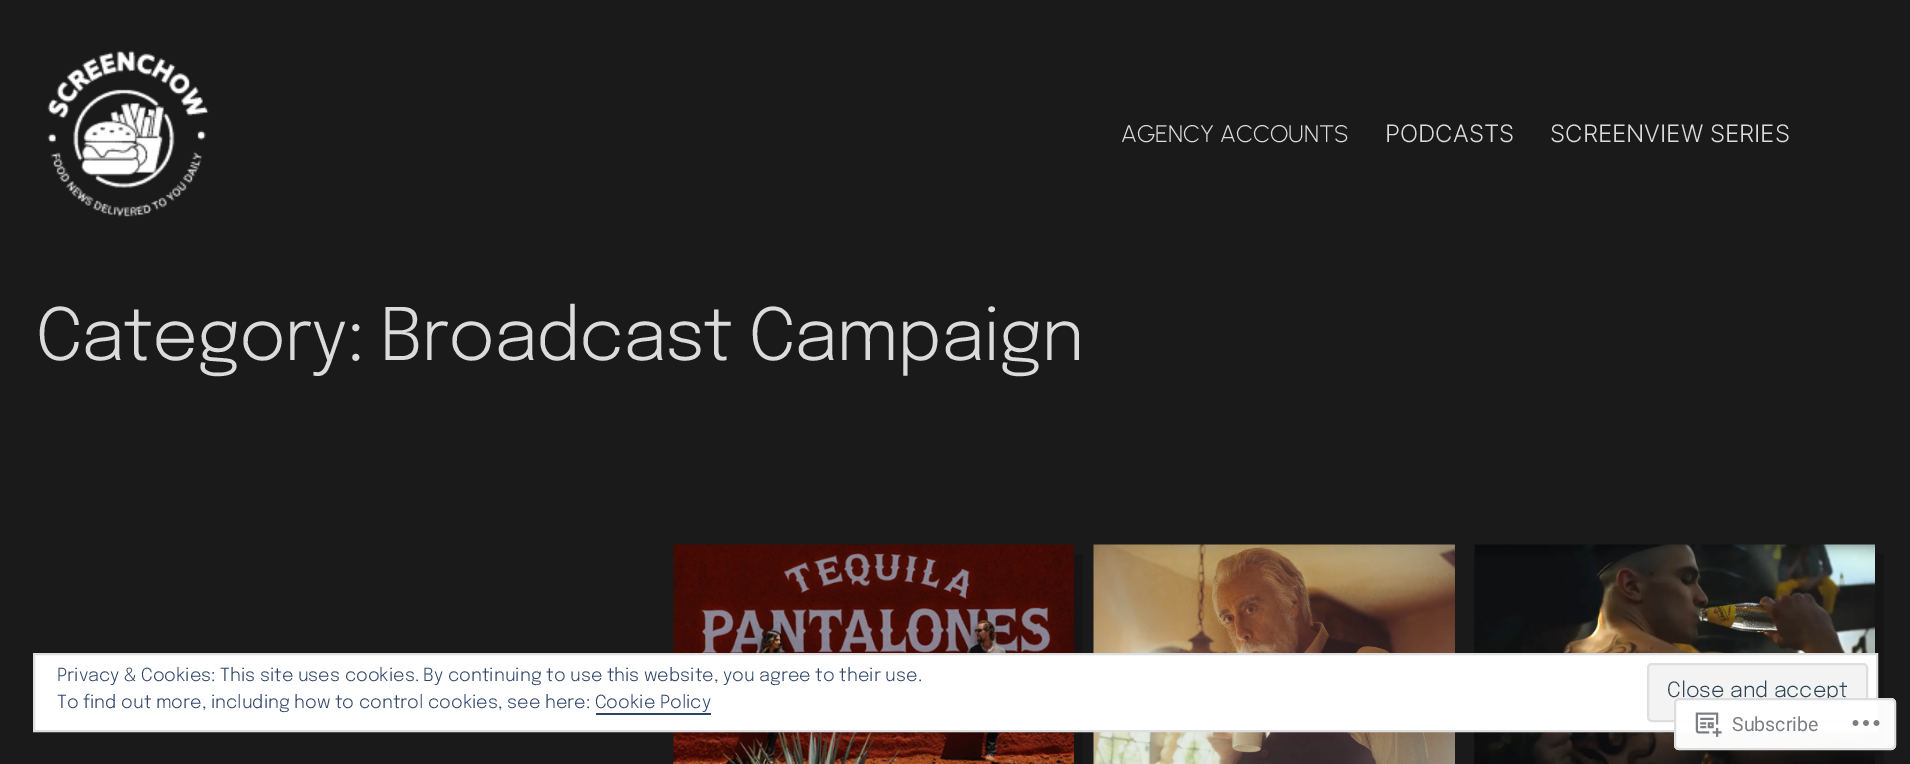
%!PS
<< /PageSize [1910 764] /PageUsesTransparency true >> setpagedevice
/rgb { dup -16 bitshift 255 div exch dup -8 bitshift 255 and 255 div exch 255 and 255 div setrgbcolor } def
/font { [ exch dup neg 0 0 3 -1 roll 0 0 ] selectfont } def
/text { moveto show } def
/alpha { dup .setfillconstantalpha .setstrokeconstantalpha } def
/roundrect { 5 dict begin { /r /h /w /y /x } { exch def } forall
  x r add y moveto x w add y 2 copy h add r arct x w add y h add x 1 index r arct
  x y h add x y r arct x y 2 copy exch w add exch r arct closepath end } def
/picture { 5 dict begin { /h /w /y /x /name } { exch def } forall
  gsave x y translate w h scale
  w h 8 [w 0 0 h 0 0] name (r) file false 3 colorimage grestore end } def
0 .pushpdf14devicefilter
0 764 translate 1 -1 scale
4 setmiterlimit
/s1 { /Urbanist-Light 24 font 16#DBDBDB rgb } def
/s2 { /Inter-Light 24 font 16#DBDBDB rgb } def
/s3 { /Epilogue-Light 18 font 16#2E4467 rgb } def
/s4 { /Epilogue-Light 21 font 16#2E4453 rgb } def
/s5 { /Roboto-Regular 19.5 font 16#7B7F84 rgb } def
16#1A1A1A rgb
0 0 1910 764 rectfill
(pic1.raw) 47 50 162 167 picture
s1
(AGENCY ACCOUNTS) 1121 142 text
s2
(PODCASTS) 1385 142 text
(SCREENVIEW SERIES) 1550 142 text
/Epilogue-Light 72 font
36 360 moveto -1.45 0 (Category: Broadcast Campaign) ashow
(pic2.raw) 673 544 401 220 picture
16#151515 rgb
683 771 moveto 683 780 lineto 1083 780 lineto 1083 554 lineto 1074 554 lineto 1074 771 lineto closepath fill
(pic3.raw) 1093 544 362 220 picture
1083 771 moveto 1083 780 lineto 1484 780 lineto 1484 554 lineto 1474 554 lineto 1474 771 lineto closepath fill
(pic4.raw) 1474 544 401 220 picture
1484 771 moveto 1484 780 lineto 1884 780 lineto 1884 554 lineto 1875 554 lineto 1875 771 lineto closepath fill
16#FFFFFF rgb
34 654 moveto 1877 654 lineto 1877 731 lineto 34 731 lineto closepath gsave fill grestore
16#DEDEDE rgb
2 setlinewidth
stroke
s3
(Privacy & Cookies: This site uses cookies. By continuing to use this website, you agree to their use.) 57 681 text
(To find out more, including how to control cookies, see here: Cookie Policy) 57 708 text
16#F3F3F3 rgb
1648 664 219 57 4 roundrect gsave fill grestore
16#DEDEDE rgb
stroke
s4
(Close and accept) 1667 697 text
16#2E4467 rgb
596 713 115 2 rectfill
0.98 alpha
16#FFFFFF rgb
1674 698 222 52 5 roundrect fill
16#DCDCDE rgb
1675 699 220 50 4 roundrect stroke
1 alpha
(pic5.raw) 1695 712 27 25 picture
s5
(Subscribe) 1732 731 text
(pic6.raw) 1852 720 28 6 picture
.poppdf14devicefilter showpage
